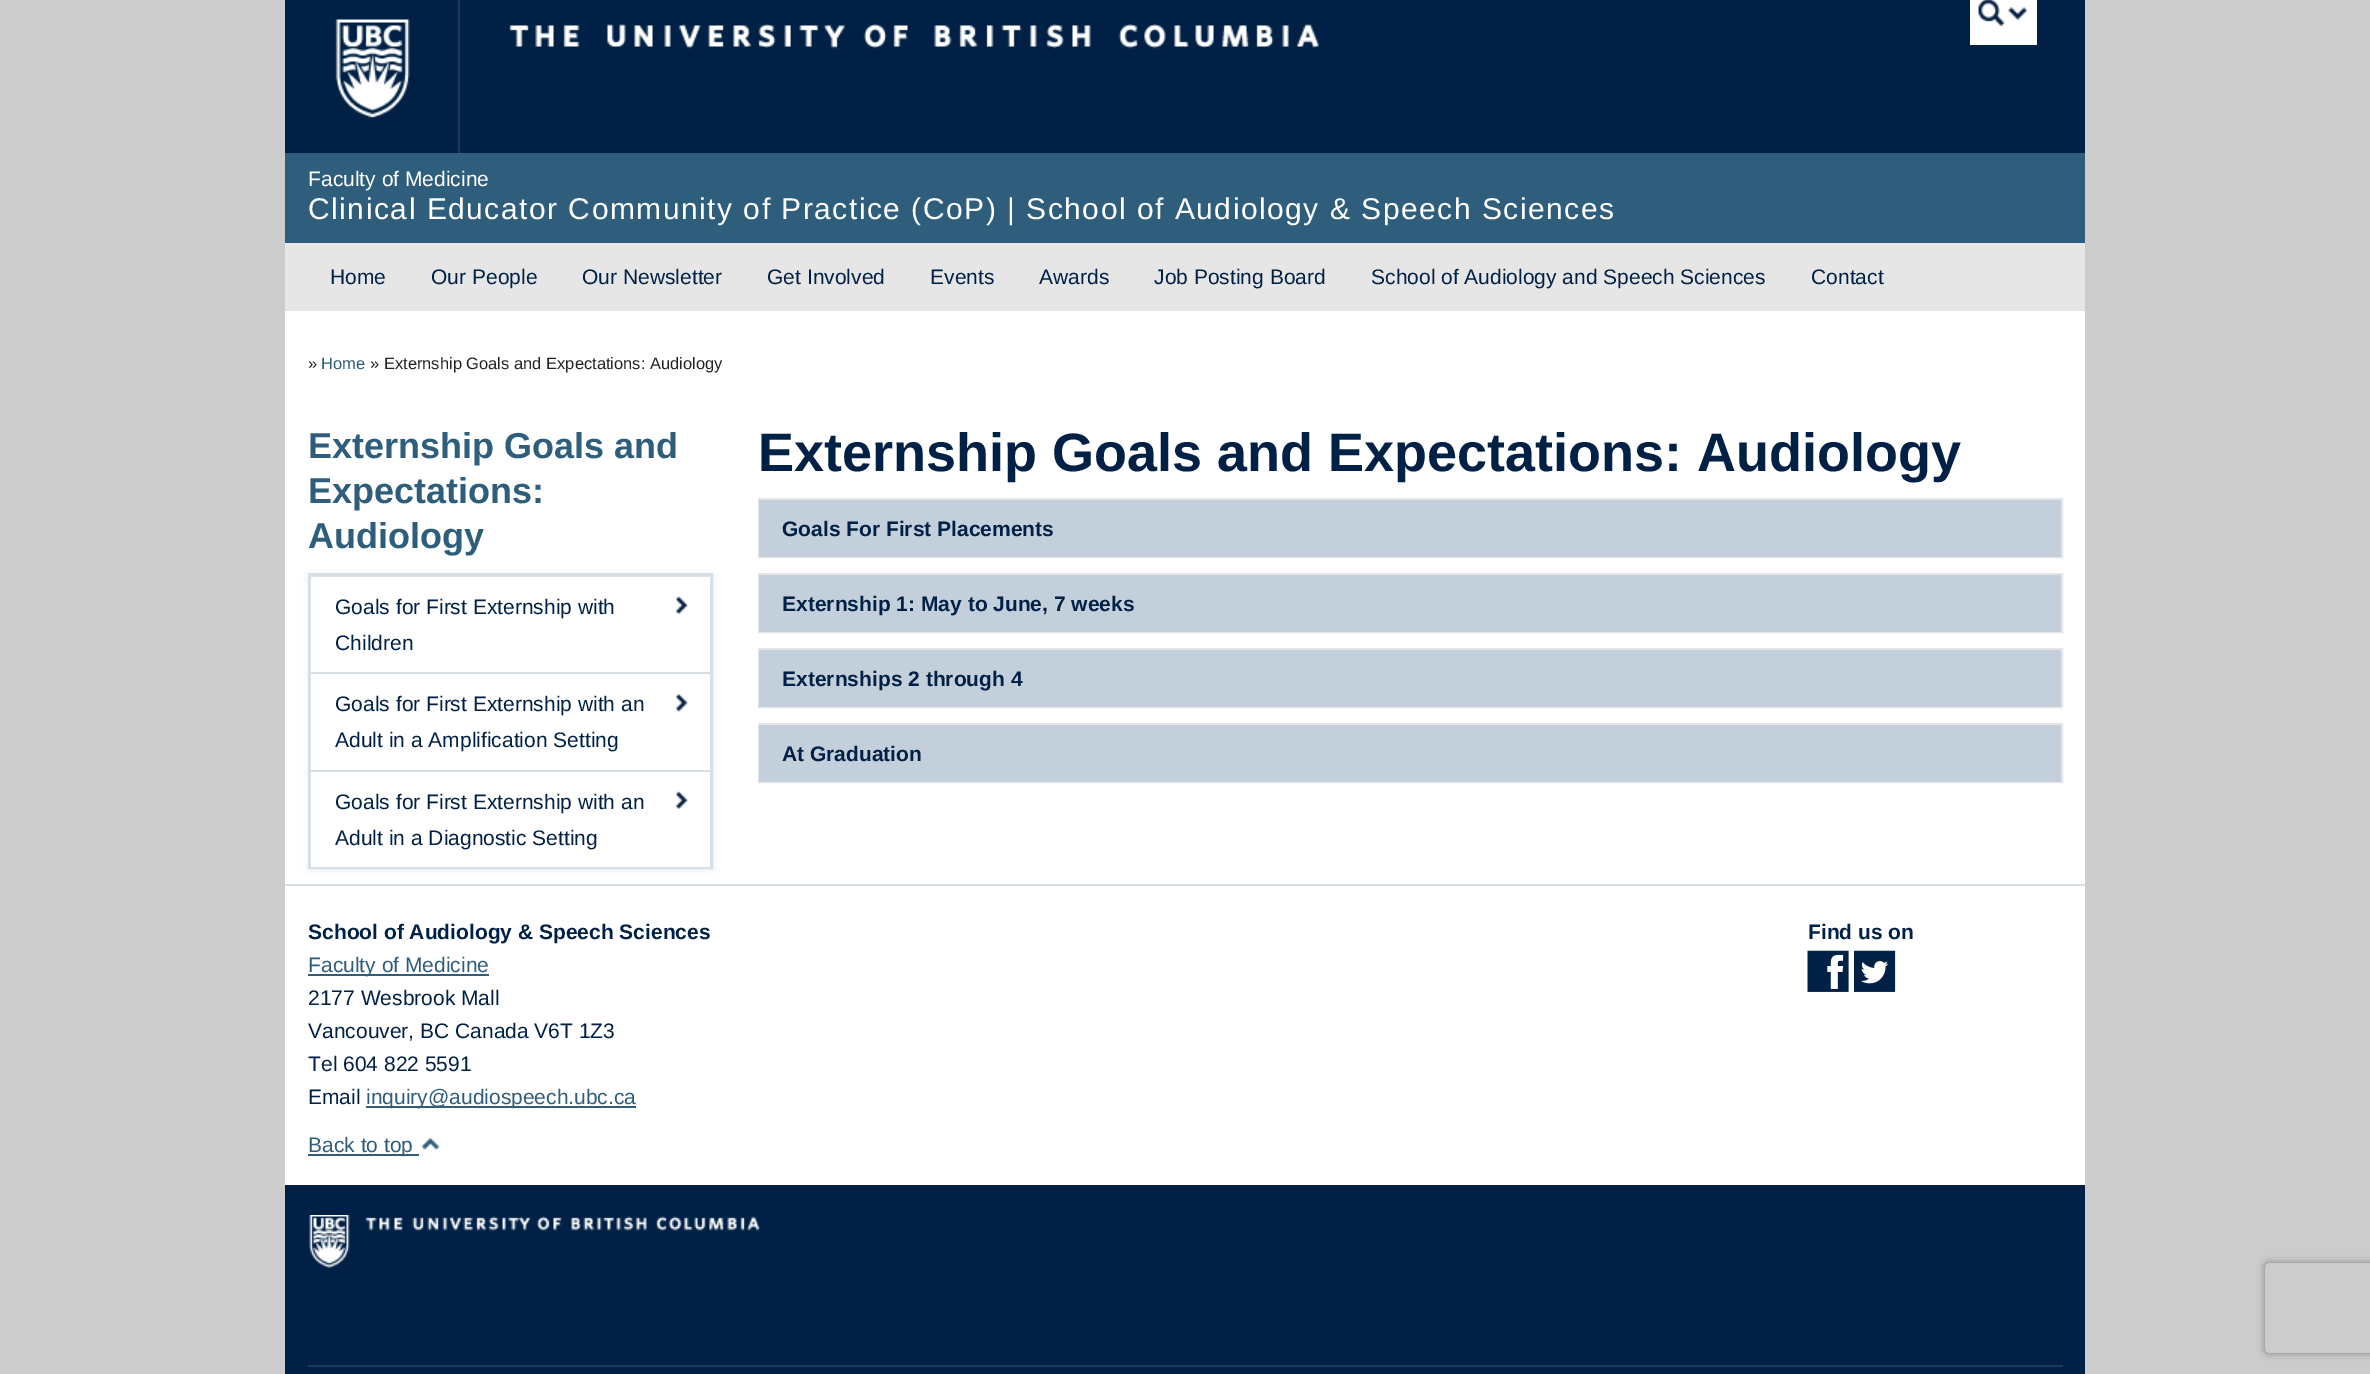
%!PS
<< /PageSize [2370 1374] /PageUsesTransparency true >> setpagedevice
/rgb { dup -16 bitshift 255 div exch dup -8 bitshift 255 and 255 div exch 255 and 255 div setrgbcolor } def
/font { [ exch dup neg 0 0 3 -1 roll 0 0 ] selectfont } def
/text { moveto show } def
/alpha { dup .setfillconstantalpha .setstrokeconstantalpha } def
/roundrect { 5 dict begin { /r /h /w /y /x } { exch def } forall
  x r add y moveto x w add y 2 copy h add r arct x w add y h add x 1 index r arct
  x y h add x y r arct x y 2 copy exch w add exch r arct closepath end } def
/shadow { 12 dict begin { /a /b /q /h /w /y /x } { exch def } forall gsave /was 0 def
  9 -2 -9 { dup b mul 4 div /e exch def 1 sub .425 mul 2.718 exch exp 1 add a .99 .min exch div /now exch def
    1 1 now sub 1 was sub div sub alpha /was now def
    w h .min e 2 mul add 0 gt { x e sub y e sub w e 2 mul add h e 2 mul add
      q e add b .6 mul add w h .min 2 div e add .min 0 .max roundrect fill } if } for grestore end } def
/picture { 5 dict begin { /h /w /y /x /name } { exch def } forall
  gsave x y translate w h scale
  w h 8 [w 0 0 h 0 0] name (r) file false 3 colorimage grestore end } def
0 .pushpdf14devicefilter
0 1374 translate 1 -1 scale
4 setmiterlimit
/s1 { /LiberationSans-Regular 21 font 16#FFFFFF rgb } def
/s2 { /LiberationSans-Regular 21 font 16#002145 rgb } def
/s3 { /LiberationSans-Regular 16.5 font 16#222222 rgb } def
/s4 { /LiberationSans-Regular 16.5 font 16#2F5D7C rgb } def
/s5 { /LiberationSans-Bold 36 font 16#2F5D7C rgb } def
/s6 { /LiberationSans-Bold 54 font 16#002145 rgb } def
/s7 { /LiberationSans-Bold 21 font 16#002145 rgb } def
/s8 { /LiberationSans-Regular 21 font 16#2F5D7C rgb } def
16#CCCCCC rgb
0 0 2370 1374 rectfill
16#002145 rgb
285 0 1800 153 rectfill
(pic1.raw) 335 19 75 99 picture
(pic2.raw) 509 23 810 26 picture
16#1F385F rgb
458 0 2 153 rectfill
16#FFFFFF rgb
1970 0 67 45 rectfill
(pic3.raw) 1978 0 49 27 picture
16#2F5D7C rgb
285 153 1800 90 rectfill
s1
(Faculty of Medicine) 308 186 text
/LiberationSans-Regular 30 font
308 219 moveto 1.5 0 (Clinical Educator Community of Practice \(CoP\) | School of Audiology & Speech Sciences) ashow
16#E6E6E6 rgb
285 243 1800 68 rectfill
s2
(Home) 330 284 text
(Our People) 431 284 text
(Our Newsletter) 582 284 text
(Get Involved) 767 284 text
(Events) 930 284 text
(Awards) 1039 284 text
(Job Posting Board) 1154 284 text
(School of Audiology and Speech Sciences) 1371 284 text
(Contact) 1811 284 text
16#FFFFFF rgb
285 311 1800 573 rectfill
s3
(») 308 369 text
s4
(Home) 321 369 text
s3
(» Externship Goals and Expectations: Audiology) 370 369 text
s5
(Externship Goals and) 308 458 text
(Expectations:) 308 503 text
(Audiology) 308 548 text
16#000000 rgb
308 575 405 295 0 3 0.07 shadow
16#FFFFFF rgb
311 577 399 290 rectfill
16#D7E0E7 rgb
2 setlinewidth
309 574 403 294 rectstroke
309 575 402 2 rectfill
710 575 1 97 rectfill
310 575 1 97 rectfill
s2
(Goals for First Externship with) 335 614 text
(pic4.raw) 676 596 12 18 picture
(Children) 335 650 text
16#D7E0E7 rgb
309 672 402 2 rectfill
710 672 1 98 rectfill
310 672 1 98 rectfill
s2
(Goals for First Externship with an) 335 711 text
(pic5.raw) 676 694 12 18 picture
(Adult in a Amplification Setting) 335 747 text
16#D7E0E7 rgb
309 770 402 2 rectfill
710 770 1 97 rectfill
310 770 1 97 rectfill
s2
(Goals for First Externship with an) 335 809 text
(pic4.raw) 676 791 12 18 picture
(Adult in a Diagnostic Setting) 335 845 text
s6
(Externship Goals and Expectations: Audiology) 758 471 text
16#E5E5E5 rgb
759 499 1303 58 rectstroke
16#C3D0DB rgb
759 500 1302 57 rectfill
s7
(Goals For First Placements) 782 536 text
16#E5E5E5 rgb
759 574 1303 58 rectstroke
16#C3D0DB rgb
759 575 1302 57 rectfill
s7
(Externship 1: May to June, 7 weeks) 782 611 text
16#E5E5E5 rgb
759 649 1303 58 rectstroke
16#C3D0DB rgb
759 650 1302 57 rectfill
s7
(Externships 2 through 4) 782 686 text
16#E5E5E5 rgb
759 724 1303 58 rectstroke
16#C3D0DB rgb
759 725 1302 57 rectfill
s7
(At Graduation) 782 761 text
285 1185 1800 189 rectfill
16#FFFFFF rgb
285 886 1800 299 rectfill
16#D7E0E7 rgb
285 884 1800 2 rectfill
s7
(School of Audiology & Speech Sciences) 308 939 text
16#2F5D7C rgb
308 974 181 2 rectfill
s8
(Faculty of Medicine) 308 972 text
s2
(2177 Wesbrook Mall) 308 1005 text
(Vancouver, BC Canada V6T 1Z3) 308 1038 text
(Tel 604 822 5591) 308 1071 text
(Email) 308 1104 text
16#2F5D7C rgb
366 1106 270 2 rectfill
(inquiry@audiospeech.ubc.ca) 366 1104 text
s7
(Find us on) 1808 939 text
(pic6.raw) 1807 950 42 42 picture
(pic7.raw) 1854 950 42 42 picture
16#2F5D7C rgb
308 1154 111 2 rectfill
s8
(Back to top) 308 1152 text
(pic8.raw) 421 1138 19 12 picture
(pic9.raw) 308 1215 452 53 picture
16#1F385F rgb
308 1365 1755 2 rectfill
gsave
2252 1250 moveto 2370 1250 lineto 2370 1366 lineto 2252 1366 lineto closepath 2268 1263 moveto 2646 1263 lineto 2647.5 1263 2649 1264.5 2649 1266 curveto 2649 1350 lineto 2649 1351.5 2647.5 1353 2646 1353 curveto 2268 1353 lineto 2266.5 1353 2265 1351.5 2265 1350 curveto 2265 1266 lineto 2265 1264.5 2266.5 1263 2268 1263 curveto closepath eoclip newpath
16#808080 rgb
2265 1263 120 90 3 4 1 shadow
grestore
.poppdf14devicefilter showpage
